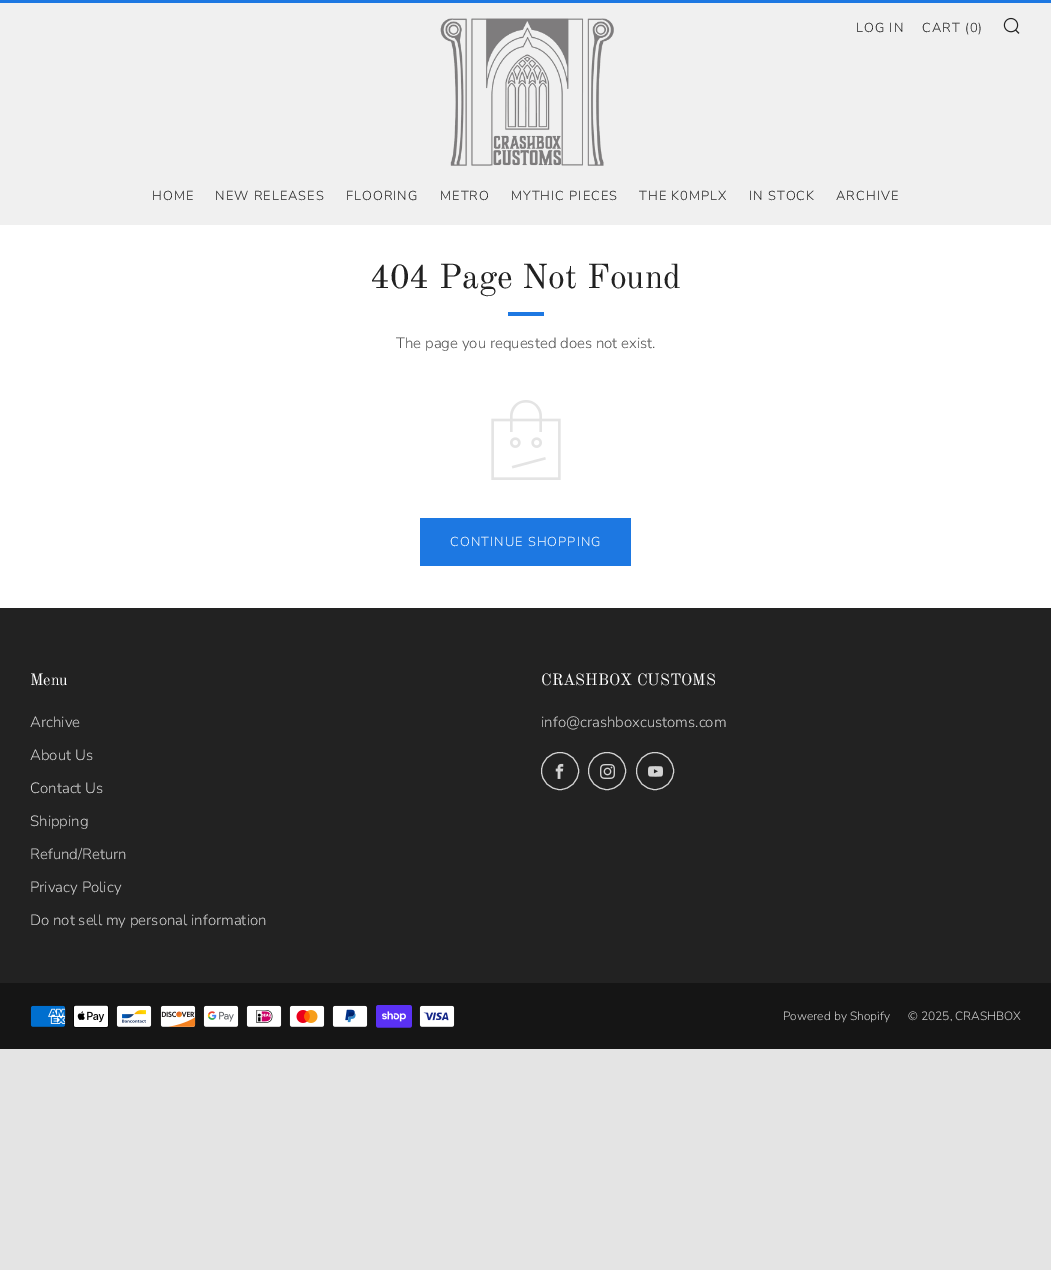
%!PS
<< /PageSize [1051 1270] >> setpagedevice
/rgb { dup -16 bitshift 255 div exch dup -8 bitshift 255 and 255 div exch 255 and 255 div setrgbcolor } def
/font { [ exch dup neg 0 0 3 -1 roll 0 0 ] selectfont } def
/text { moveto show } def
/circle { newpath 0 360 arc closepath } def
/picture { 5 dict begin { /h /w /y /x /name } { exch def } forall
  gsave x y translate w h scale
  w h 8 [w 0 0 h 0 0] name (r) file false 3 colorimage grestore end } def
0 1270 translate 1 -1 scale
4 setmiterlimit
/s1 { /OldStandardTT-Regular 34 font 16#212121 rgb } def
/s2 { /NunitoSans-Light 15 font 16#535353 rgb } def
/s3 { /OldStandardTT-Regular 16 font 16#FFFFFF rgb } def
/s4 { /NunitoSans-Light 15 font 16#D3D3D3 rgb } def
/s5 { /NunitoSans-Light 12 font 16#D3D3D3 rgb } def
16#E4E4E4 rgb
0 0 1051 1270 rectfill
16#FFFFFF rgb
0 225 1051 383 rectfill
16#F0F0F0 rgb
0 3 1051 222 rectfill
16#1D78E2 rgb
0 0 1051 3 rectfill
(pic1.raw) 440 18 174 148 picture
/NunitoSans-Light 13 font
16#212121 rgb
856 32 moveto 1 0 (LOG IN) ashow
922 32 moveto 1 0 (CART \(0\)) ashow
(pic2.raw) 1003 17 17 17 picture
152 200 moveto 1 0 (HOME) ashow
215 200 moveto 1 0 (NEW RELEASES) ashow
346 200 moveto 1 0 (FLOORING) ashow
440 200 moveto 1 0 (METRO) ashow
511 200 moveto 1 0 (MYTHIC PIECES) ashow
639 200 moveto 1 0 (THE K0MPLX) ashow
749 200 moveto 1 0 (IN STOCK) ashow
836 200 moveto 1 0 (ARCHIVE) ashow
s1
(404 Page Not Found) 370 288 text
16#1D78E2 rgb
508 312 36 4 rectfill
s2
(The page you requested does not exist.) 396 348 text
(pic3.raw) 491 400 70 80 picture
16#1D78E2 rgb
420 518 211 48 rectfill
/NunitoSans-Light 13 font
16#FFFFFF rgb
450 546 moveto 1 0 (CONTINUE SHOPPING) ashow
16#222222 rgb
0 608 1051 375 rectfill
s3
(Menu) 30 685 text
s4
(Archive) 30 727 text
(About Us) 30 760 text
(Contact Us) 30 793 text
(Shipping) 30 826 text
(Refund/Return) 30 859 text
(Privacy Policy) 30 892 text
(Do not sell my personal information) 30 925 text
s3
(CRASHBOX CUSTOMS) 541 685 text
s4
(info@crashboxcustoms.com) 541 727 text
560 771 18.5 circle stroke
(pic4.raw) 555 763 9 16 picture
607 771 18.5 circle stroke
(pic5.raw) 600 764 15 15 picture
655 771 18.5 circle stroke
(pic6.raw) 648 766 15 11 picture
16#151515 rgb
0 983 1051 66 rectfill
(pic7.raw) 30 1005 36 22 picture
(pic8.raw) 73 1005 36 23 picture
(pic9.raw) 116 1005 36 22 picture
(pic10.raw) 160 1005 36 22 picture
(pic11.raw) 203 1005 36 22 picture
(pic12.raw) 246 1005 36 22 picture
(pic13.raw) 289 1005 36 22 picture
(pic14.raw) 332 1005 36 22 picture
(pic15.raw) 376 1005 36 23 picture
(pic16.raw) 419 1005 36 22 picture
s5
(Powered by Shopify) 783 1020 text
(© 2025, CRASHBOX) 908 1020 text
showpage
